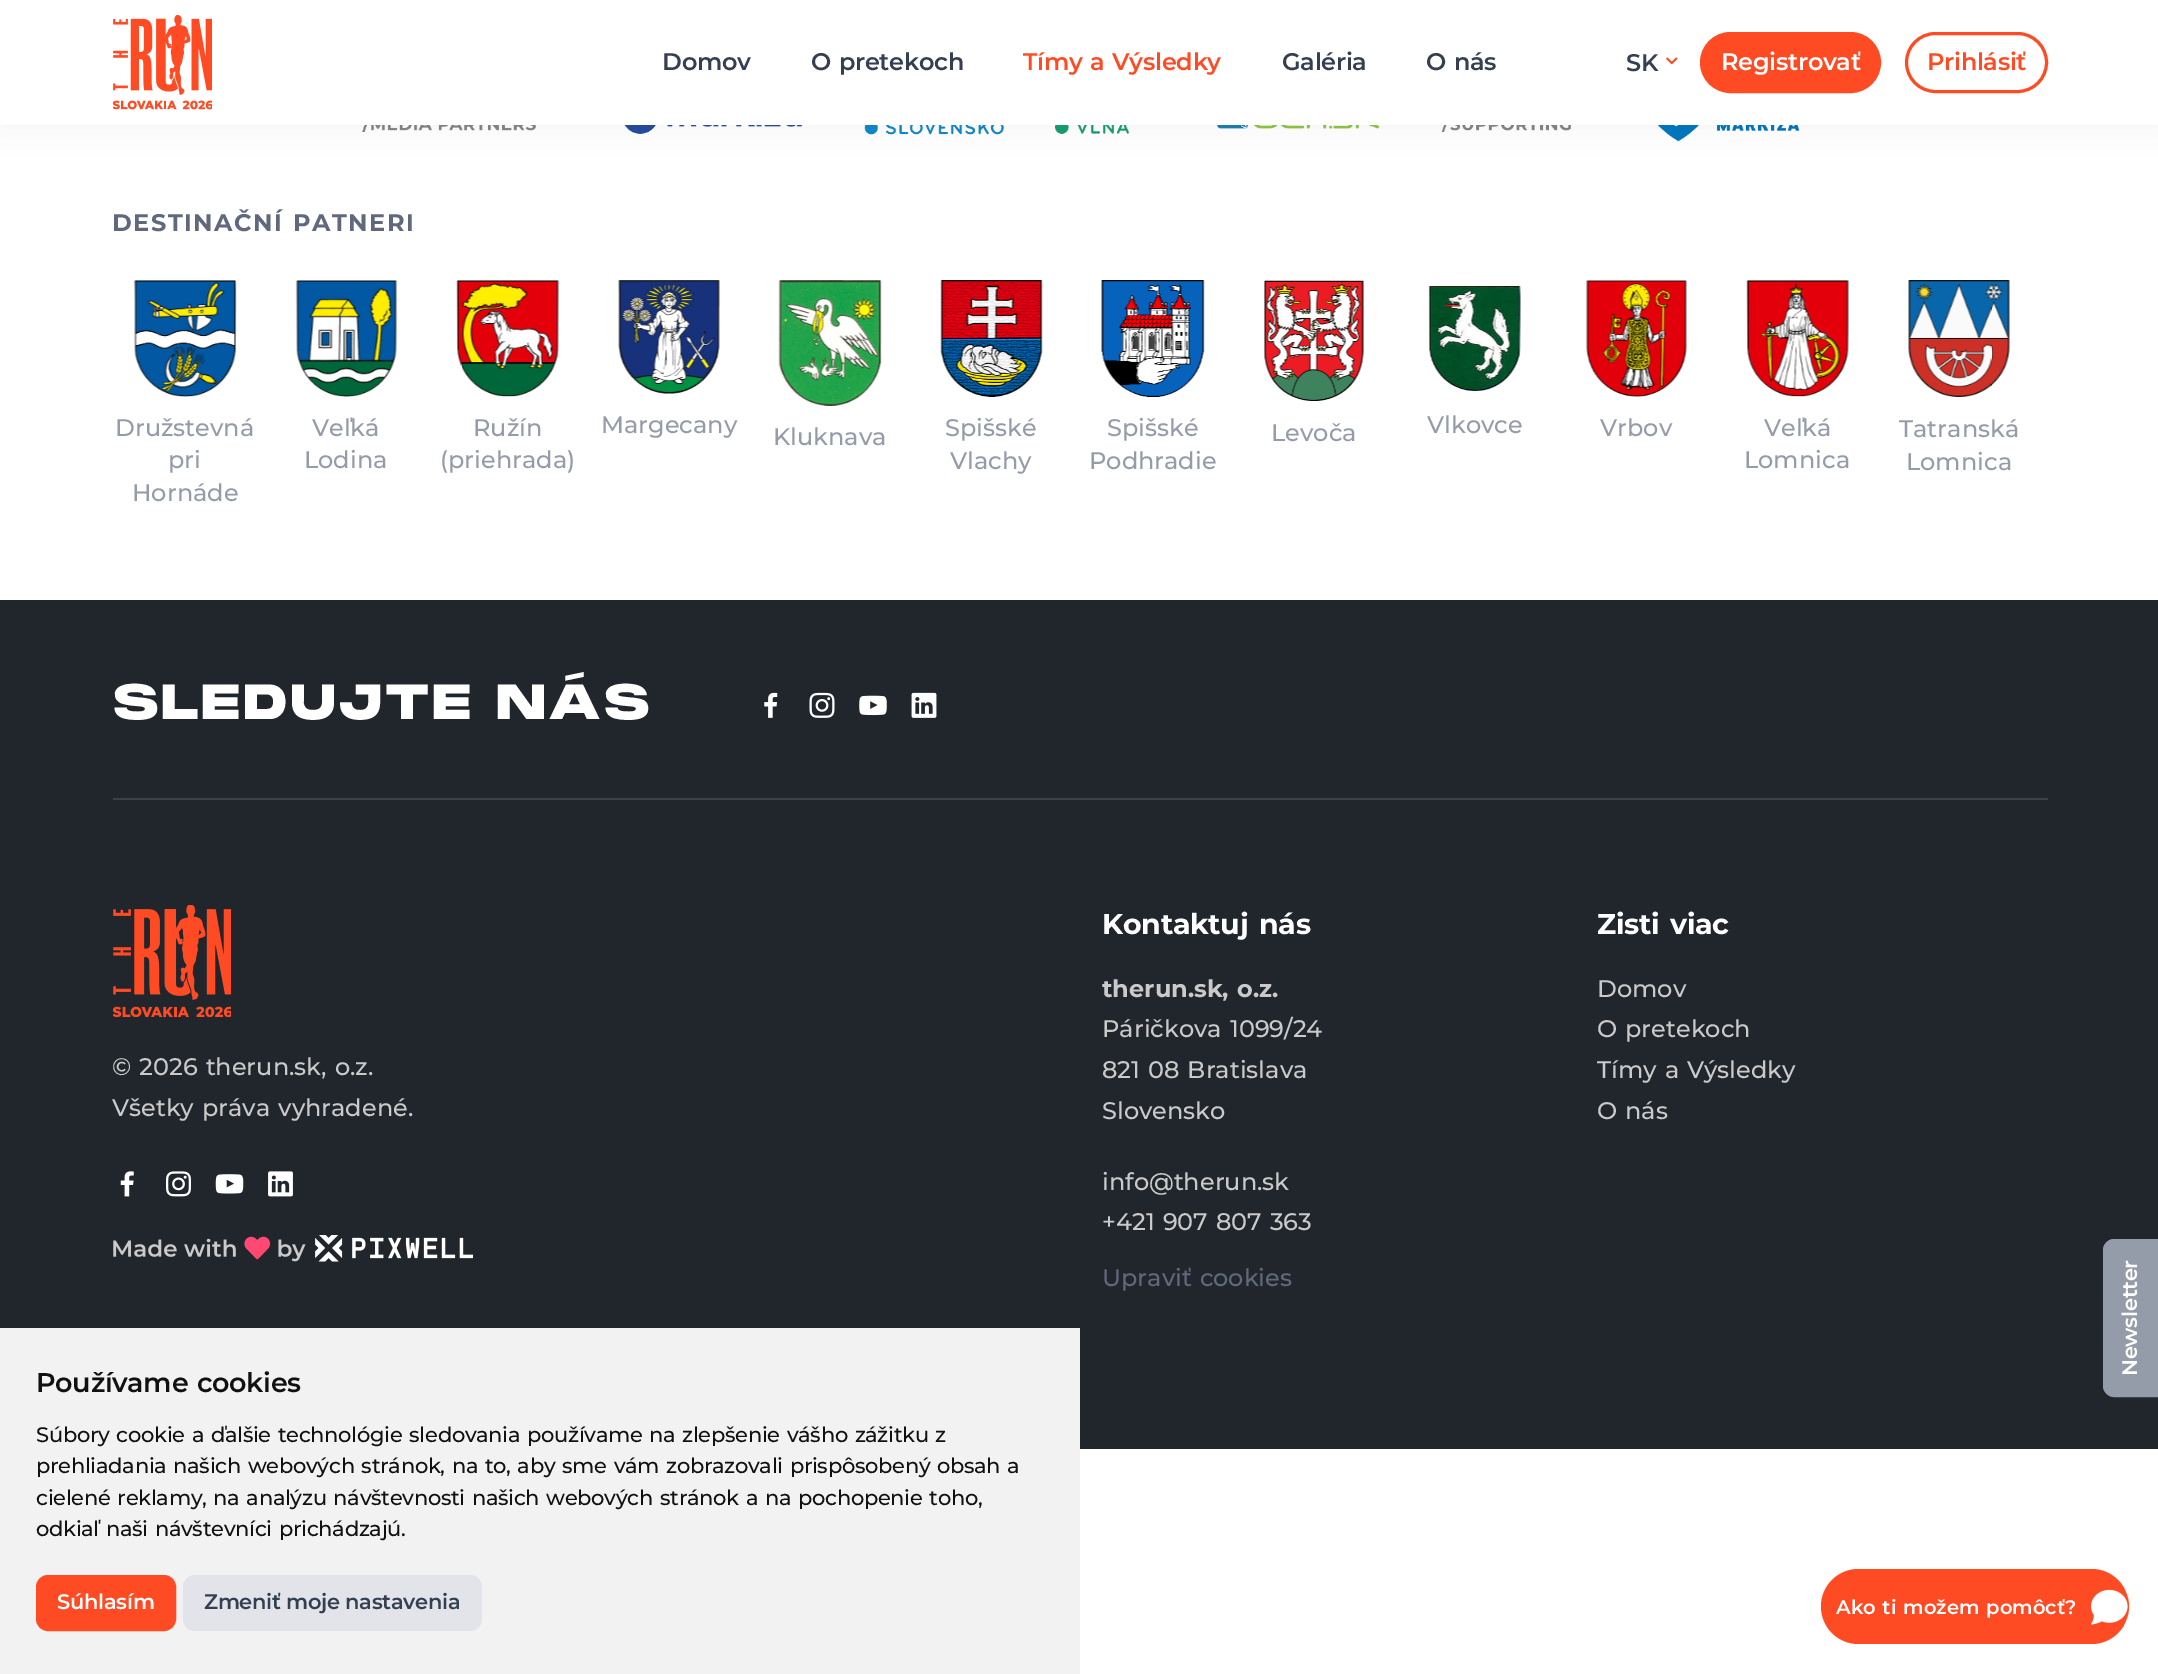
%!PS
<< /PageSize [2158 1674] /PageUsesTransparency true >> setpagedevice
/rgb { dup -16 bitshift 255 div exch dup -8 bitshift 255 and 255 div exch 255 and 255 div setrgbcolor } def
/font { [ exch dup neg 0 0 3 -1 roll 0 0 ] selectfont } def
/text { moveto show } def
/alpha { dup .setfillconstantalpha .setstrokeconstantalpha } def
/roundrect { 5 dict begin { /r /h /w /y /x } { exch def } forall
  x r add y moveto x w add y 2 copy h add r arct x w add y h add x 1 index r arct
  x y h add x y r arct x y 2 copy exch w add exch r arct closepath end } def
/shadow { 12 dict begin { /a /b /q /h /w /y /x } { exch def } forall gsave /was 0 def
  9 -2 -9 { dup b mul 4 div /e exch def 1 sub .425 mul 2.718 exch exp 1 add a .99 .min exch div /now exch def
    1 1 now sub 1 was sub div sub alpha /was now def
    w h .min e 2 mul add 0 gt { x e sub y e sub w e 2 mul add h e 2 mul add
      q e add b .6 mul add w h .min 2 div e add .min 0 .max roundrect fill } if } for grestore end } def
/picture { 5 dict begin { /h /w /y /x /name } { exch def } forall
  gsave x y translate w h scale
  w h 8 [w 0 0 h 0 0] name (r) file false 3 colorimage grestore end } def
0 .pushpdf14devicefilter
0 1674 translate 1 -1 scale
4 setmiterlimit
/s1 { /Montserrat-Medium 24 font 16#959CA9 rgb } def
/s2 { /Montserrat-Medium 24 font 16#CACACA rgb } def
16#FFFFFF rgb
0 0 2158 1674 rectfill
(pic3.raw) 362 125 1438 17 picture
16#1E2228 rgb
0 0 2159 125 0 19 0.06 shadow
16#FFFFFF rgb
0 0 2158 125 rectfill
(pic1.raw) 113 15 99 95 picture
/Montserrat-SemiBold 24 font
16#343F52 rgb
662 70 moveto -0.3 0 (Domov) ashow
811 70 moveto 1.5 0 32 -0.3 0 (O pretekoch) awidthshow
16#FF4B24 rgb
1023 70 moveto 1.5 0 32 -0.3 0 (Tímy a Výsledky) awidthshow
16#343F52 rgb
1282 70 moveto -0.3 0 (Galéria) ashow
1426 70 moveto 1.5 0 32 -0.3 0 (O nás) awidthshow
1626 71 moveto -0.3 0 (SK) ashow
(pic2.raw) 1666 57 12 8 picture
16#FF4B24 rgb
1701.5 33.5 178 58 29 roundrect gsave fill grestore
3 setlinewidth
stroke
16#FFFFFF rgb
1721 70 moveto -0.3 0 (Registrovať) ashow
16#FF4B24 rgb
1906.5 33.5 140 58 29 roundrect stroke
1927 70 moveto -0.3 0 (Prihlásiť) ashow
/Montserrat-Bold 24 font
16#60697B rgb
112 231 moveto 1.5 0 32 1.5 0 (DESTINAČNÍ PATNERI) awidthshow
(pic4.raw) 133 280 104 117 picture
s1
(Družstevná) 115 436 text
(pri) 168 468 text
(Hornáde) 132 501 text
(pic5.raw) 295 280 103 117 picture
(Veľká) 312 436 text
(Lodina) 304 468 text
(pic6.raw) 456 280 104 117 picture
(Ružín) 473 436 text
(\(priehrada\)) 440 468 text
(pic7.raw) 618 280 102 114 picture
(Margecany) 601 433 text
(pic8.raw) 778 280 104 126 picture
(Kluknava) 773 445 text
(pic9.raw) 940 280 103 117 picture
(Spišské) 945 436 text
(Vlachy) 950 469 text
(pic10.raw) 1101 280 104 117 picture
(Spišské) 1107 436 text
(Podhradie) 1089 469 text
(pic11.raw) 1264 280 100 121 picture
(Levoča) 1271 441 text
(pic12.raw) 1428 285 93 106 picture
(Vlkovce) 1427 433 text
(pic13.raw) 1585 280 102 117 picture
(Vrbov) 1600 436 text
(pic14.raw) 1746 280 104 117 picture
(Veľká) 1764 436 text
(Lomnica) 1744 468 text
(pic15.raw) 1908 280 102 117 picture
(Tatranská) 1899 437 text
(Lomnica) 1906 470 text
16#21262C rgb
0 600 2158 849 rectfill
/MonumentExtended-Black 48 font
16#FFFFFF rgb
112 719 moveto 3 0 32 0.6 0 (SLEDUJTE NÁS) awidthshow
(pic16.raw) 764 692 14 26 picture
(pic17.raw) 809 692 26 26 picture
(pic18.raw) 859 695 28 21 picture
(pic19.raw) 911 692 26 26 picture
16#3B414B rgb
113 798 1935 2 rectfill
(pic20.raw) 113 905 118 112 picture
/Montserrat-Medium 24 font
16#CACACA rgb
112 1075 moveto 1.5 0 32 (© 2026 therun.sk, o.z.) widthshow
112 1116 moveto 1.5 0 32 (Všetky práva vyhradené.) widthshow
(pic21.raw) 120 1171 14 26 picture
(pic22.raw) 166 1171 25 26 picture
(pic23.raw) 215 1174 29 20 picture
(pic24.raw) 268 1171 25 26 picture
(pic25.raw) 113 1235 360 27 picture
/Montserrat-Bold 28.5 font
16#FFFFFF rgb
1102 934 moveto 3 0 32 -0.3 0 (Kontaktuj nás) awidthshow
/Montserrat-Bold 24 font
16#CACACA rgb
1102 997 moveto 1.5 0 32 (therun.sk, o.z.) widthshow
/Montserrat-Medium 24 font
1102 1037 moveto 1.5 0 32 (Páričkova 1099/24) widthshow
1102 1078 moveto 1.5 0 32 (821 08 Bratislava) widthshow
(Slovensko) 1102 1119 text
(info@therun.sk) 1102 1190 text
1102 1230 moveto 1.5 0 32 (+421 907 807 363) widthshow
16#60697B rgb
1102 1286 moveto 1.5 0 32 (Upraviť cookies) widthshow
/Montserrat-Bold 28.5 font
16#FFFFFF rgb
1597 934 moveto 3 0 32 -0.3 0 (Zisti viac) awidthshow
s2
(Domov) 1597 997 text
1597 1037 moveto 1.5 0 32 (O pretekoch) widthshow
1597 1078 moveto 1.5 0 32 (Tímy a Výsledky) widthshow
1597 1119 moveto 1.5 0 32 (O nás) widthshow
16#959CA9 rgb
2103 1385 moveto 2103 1251 lineto 2103 1244 2108 1239 2115 1239 curveto 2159 1239 lineto 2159 1397 lineto 2115 1397 lineto 2108 1397 2103 1392 2103 1385 curveto closepath fill
2104.5 1385 moveto 2104.5 1251 lineto 2104.5 1245 2109 1240.5 2115 1240.5 curveto 2157 1240.5 lineto 2157 1395.5 lineto 2115 1395.5 lineto 2109 1395.5 2104.5 1391 2104.5 1385 curveto closepath stroke
/Montserrat-SemiBold 21 font
16#FFFFFF rgb
gsave 2137 1376 translate -90 rotate 0 0 moveto -0.3 0 (Newsletter) ashow grestore
16#F2F2F2 rgb
0 1328 1080 346 rectfill
/Montserrat-SemiBold 27 font
16#111111 rgb
36 1392 moveto 1.5 0 32 -0.3 0 (Používame cookies) awidthshow
/Montserrat-Medium 21 font
36 1442 moveto 1.5 0 32 -0.3 0 (Súbory cookie a ďalšie technológie sledovania používame na zlepšenie vášho zážitku z) awidthshow
36 1473 moveto 1.5 0 32 -0.3 0 (prehliadania našich webových stránok, na to, aby sme vám zobrazovali prispôsobený obsah a) awidthshow
36 1505 moveto 1.5 0 32 -0.3 0 (cielené reklamy, na analýzu návštevnosti našich webových stránok a na pochopenie toho,) awidthshow
36 1536 moveto 1.5 0 32 -0.3 0 (odkiaľ naši návštevníci prichádzajú.) awidthshow
16#FF4B24 rgb
37.5 1576.5 137 53 10.5 roundrect gsave fill grestore
stroke
/Montserrat-SemiBold 21 font
16#FFFFFF rgb
57 1609 moveto -0.3 0 (Súhlasím) ashow
16#E2E4E9 rgb
183 1575 299 56 12 roundrect fill
16#343F52 rgb
204 1609 moveto -0.3 0 (Zmeniť moje nastavenia) ashow
16#FF4B24 rgb
1821 1569 308 75 37.5 roundrect fill
1975 1569 moveto 2060 1569 2129 1586 2129 1606.5 curveto 2129 1627 2060 1644 1975 1644 curveto 1890 1644 1821 1627 1821 1606.5 curveto 1821 1586 1890 1569 1975 1569 curveto closepath fill
/Montserrat-SemiBold 19.5 font
16#FFFFFF rgb
1836 1614 moveto 1.5 0 32 (Ako ti možem pomôcť?) widthshow
(pic26.raw) 2091 1589 37 36 picture
.poppdf14devicefilter showpage
